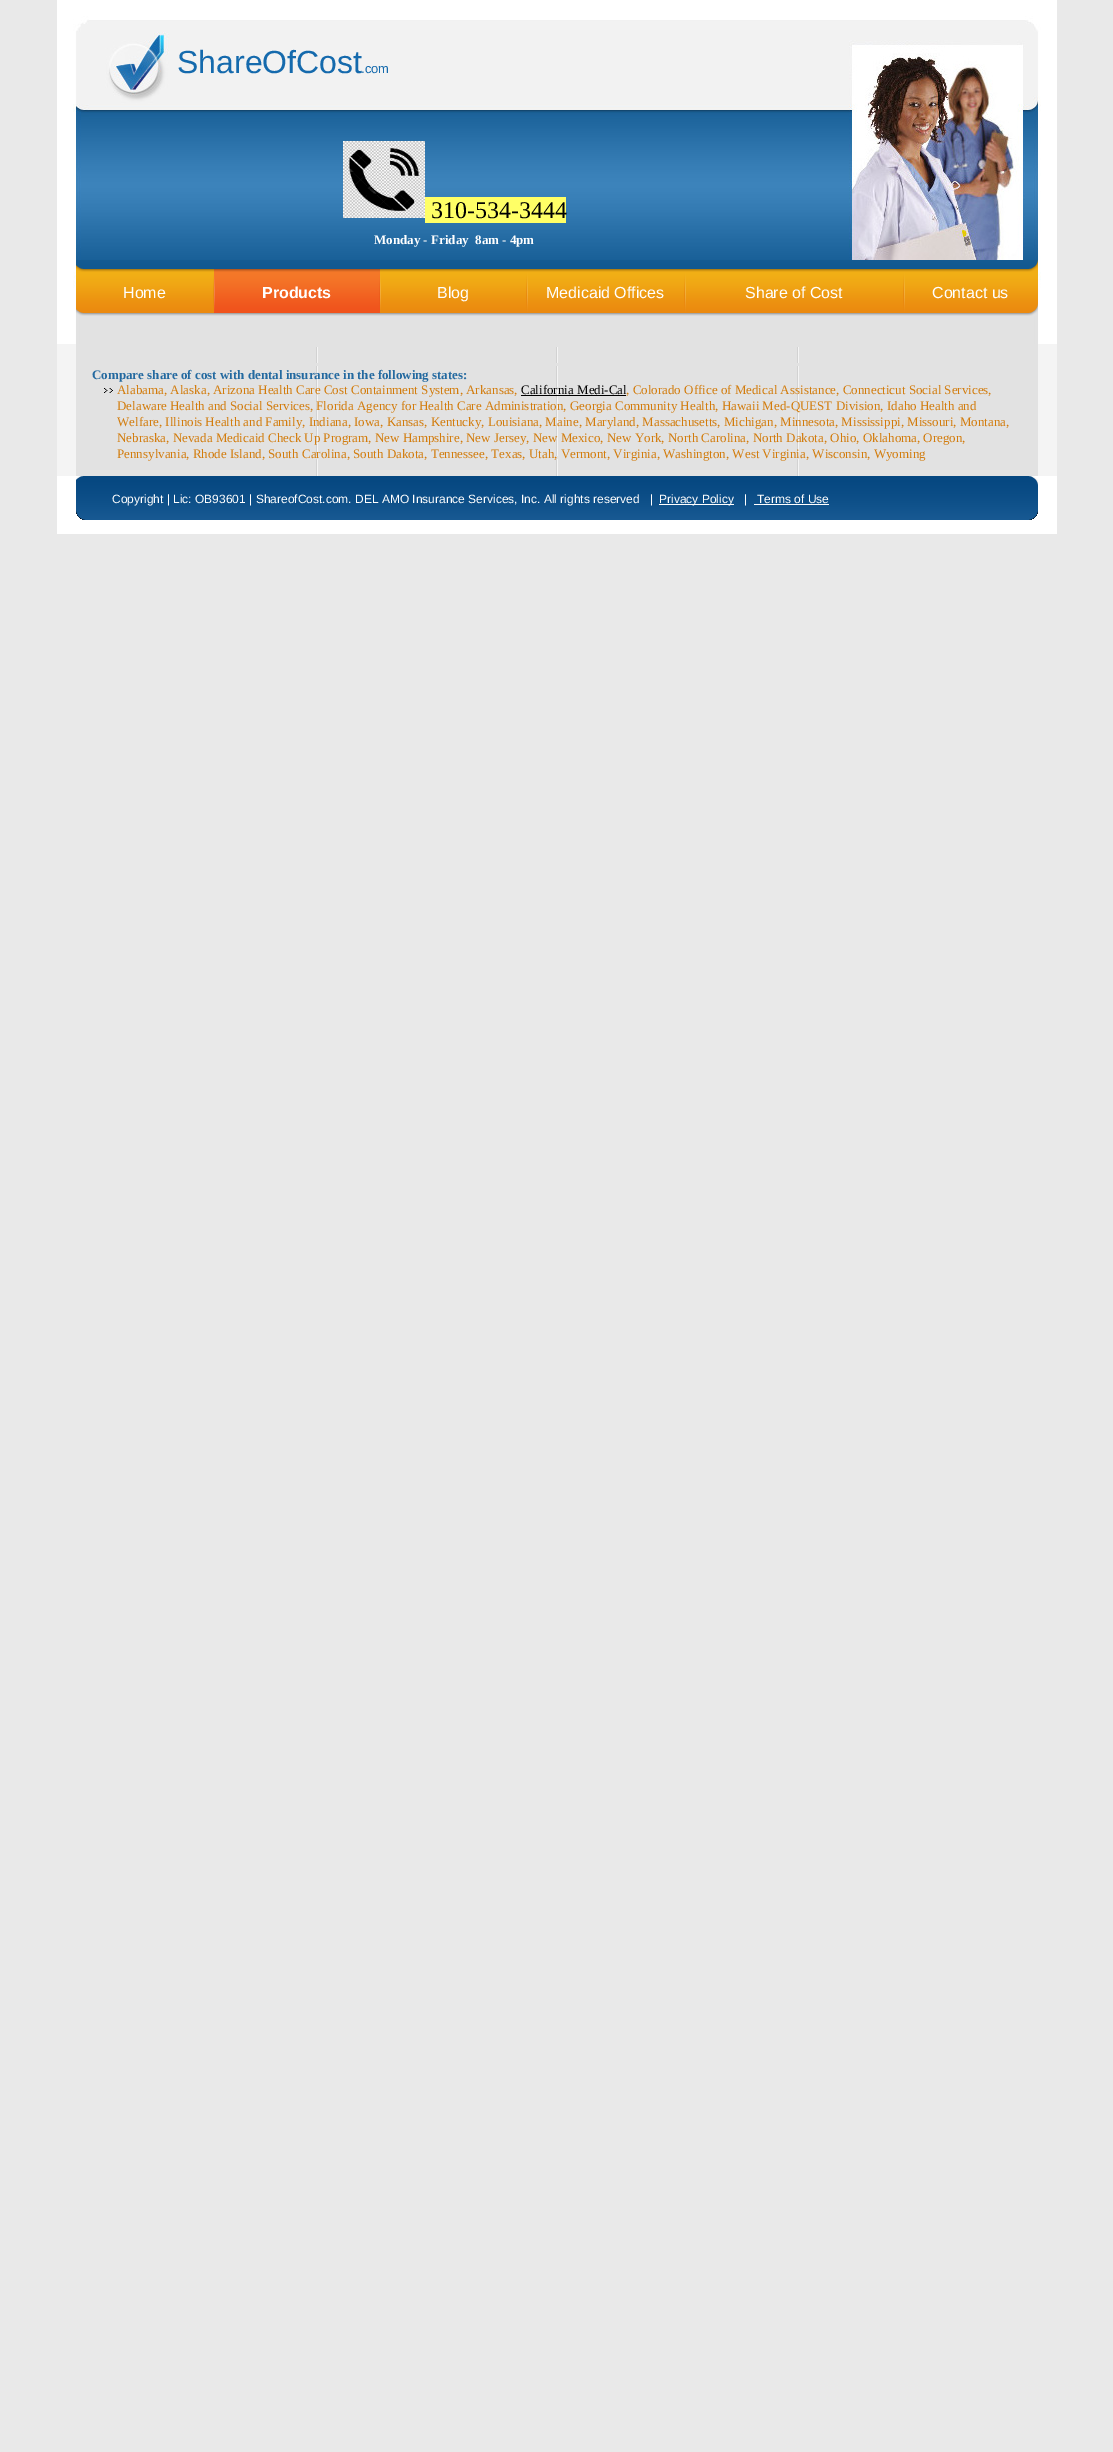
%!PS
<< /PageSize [1113 2452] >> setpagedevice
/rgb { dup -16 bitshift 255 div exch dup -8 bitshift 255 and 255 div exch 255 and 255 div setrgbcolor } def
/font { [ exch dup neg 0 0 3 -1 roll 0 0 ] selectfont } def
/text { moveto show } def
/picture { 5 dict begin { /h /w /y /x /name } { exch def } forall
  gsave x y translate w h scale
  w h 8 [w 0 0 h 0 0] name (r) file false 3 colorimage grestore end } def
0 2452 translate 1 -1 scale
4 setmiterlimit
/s1 { /LiberationSans-Regular 32 font 16#156AAD rgb } def
/s2 { /LiberationSans-Regular 13 font 16#156AAD rgb } def
/s3 { /LiberationSerif-Regular 24 font 16#000000 rgb } def
/s4 { /LiberationSerif-Bold 13 font 16#FFFFFF rgb } def
/s5 { /LiberationSans-Regular 16 font 16#FFFFFF rgb } def
/s6 { /LiberationSans-Bold 16 font 16#FFFFFF rgb } def
/s7 { /LiberationSerif-Bold 13 font 16#2369A0 rgb } def
/s8 { /LiberationSerif-Regular 13 font 16#D37C0C rgb } def
/s9 { /LiberationSerif-Regular 13 font 16#000000 rgb } def
/s10 { /LiberationSans-Regular 12 font 16#FFFFFF rgb } def
16#E9E9E9 rgb
0 0 1113 2452 rectfill
(pic1.raw) 57 0 1000 344 picture
s1
(ShareOfCost) 177 73 text
s2
(.com) 361 73 text
(pic2.raw) 343 141 82 77 picture
16#FFFF66 rgb
425 197 141 26 rectfill
s3
(310-534-3444) 431 218 text
s4
(Monday - Friday) 374 244 text
(8am - 4pm) 475 244 text
(pic3.raw) 76 260 138 56 picture
s5
(Home) 123 298 text
(pic4.raw) 214 260 166 56 picture
s6
(Products) 262 298 text
(pic5.raw) 380 260 147 56 picture
s5
(Blog) 437 298 text
(pic6.raw) 527 260 158 56 picture
(Medicaid Offices) 546 298 text
(pic7.raw) 685 260 219 56 picture
(Share of Cost) 745 298 text
(pic8.raw) 904 260 134 56 picture
(Contact us) 932 298 text
(pic9.raw) 57 344 1000 19 picture
(pic10.raw) 57 363 1000 113 picture
s7
(Compare share of cost with dental insurance in the following states:) 92 379 text
(pic11.raw) 104 388 9 5 picture
s8
(Alabama, Alaska, Arizona Health Care Cost Containment System, Arkansas,) 117 394 text
s9
(California Medi-Cal) 521 394 text
s8
(, Colorado Office of Medical Assistance, Connecticut Social Services,) 626 394 text
16#000000 rgb
521 395 105 1 rectfill
s8
(Delaware Health and Social Services, Florida Agency for Health Care Administration, Georgia Community Health, Hawaii Med-QUEST Division, Idaho Health and) 117 410 text
(Welfare, Illinois Health and Family, Indiana, Iowa, Kansas, Kentucky, Louisiana, Maine, Maryland, Massachusetts, Michigan, Minnesota, Mississippi, Missouri, Montana,) 117 426 text
(Nebraska, Nevada Medicaid Check Up Program, New Hampshire, New Jersey, New Mexico, New York, North Carolina, North Dakota, Ohio, Oklahoma, Oregon,) 117 442 text
(Pennsylvania, Rhode Island, South Carolina, South Dakota, Tennessee, Texas, Utah, Vermont, Virginia, Washington, West Virginia, Wisconsin, Wyoming) 117 458 text
(pic12.raw) 57 476 1000 58 picture
s10
(Copyright | Lic: OB93601 | ShareofCost.com. DEL AMO Insurance Services, Inc. All rights reserved   |) 112 503 text
659 504 75 1 rectfill
(Privacy Policy) 659 503 text
(|) 744 503 text
(Terms of Use) 757 503 text
754 504 75 1 rectfill
showpage
